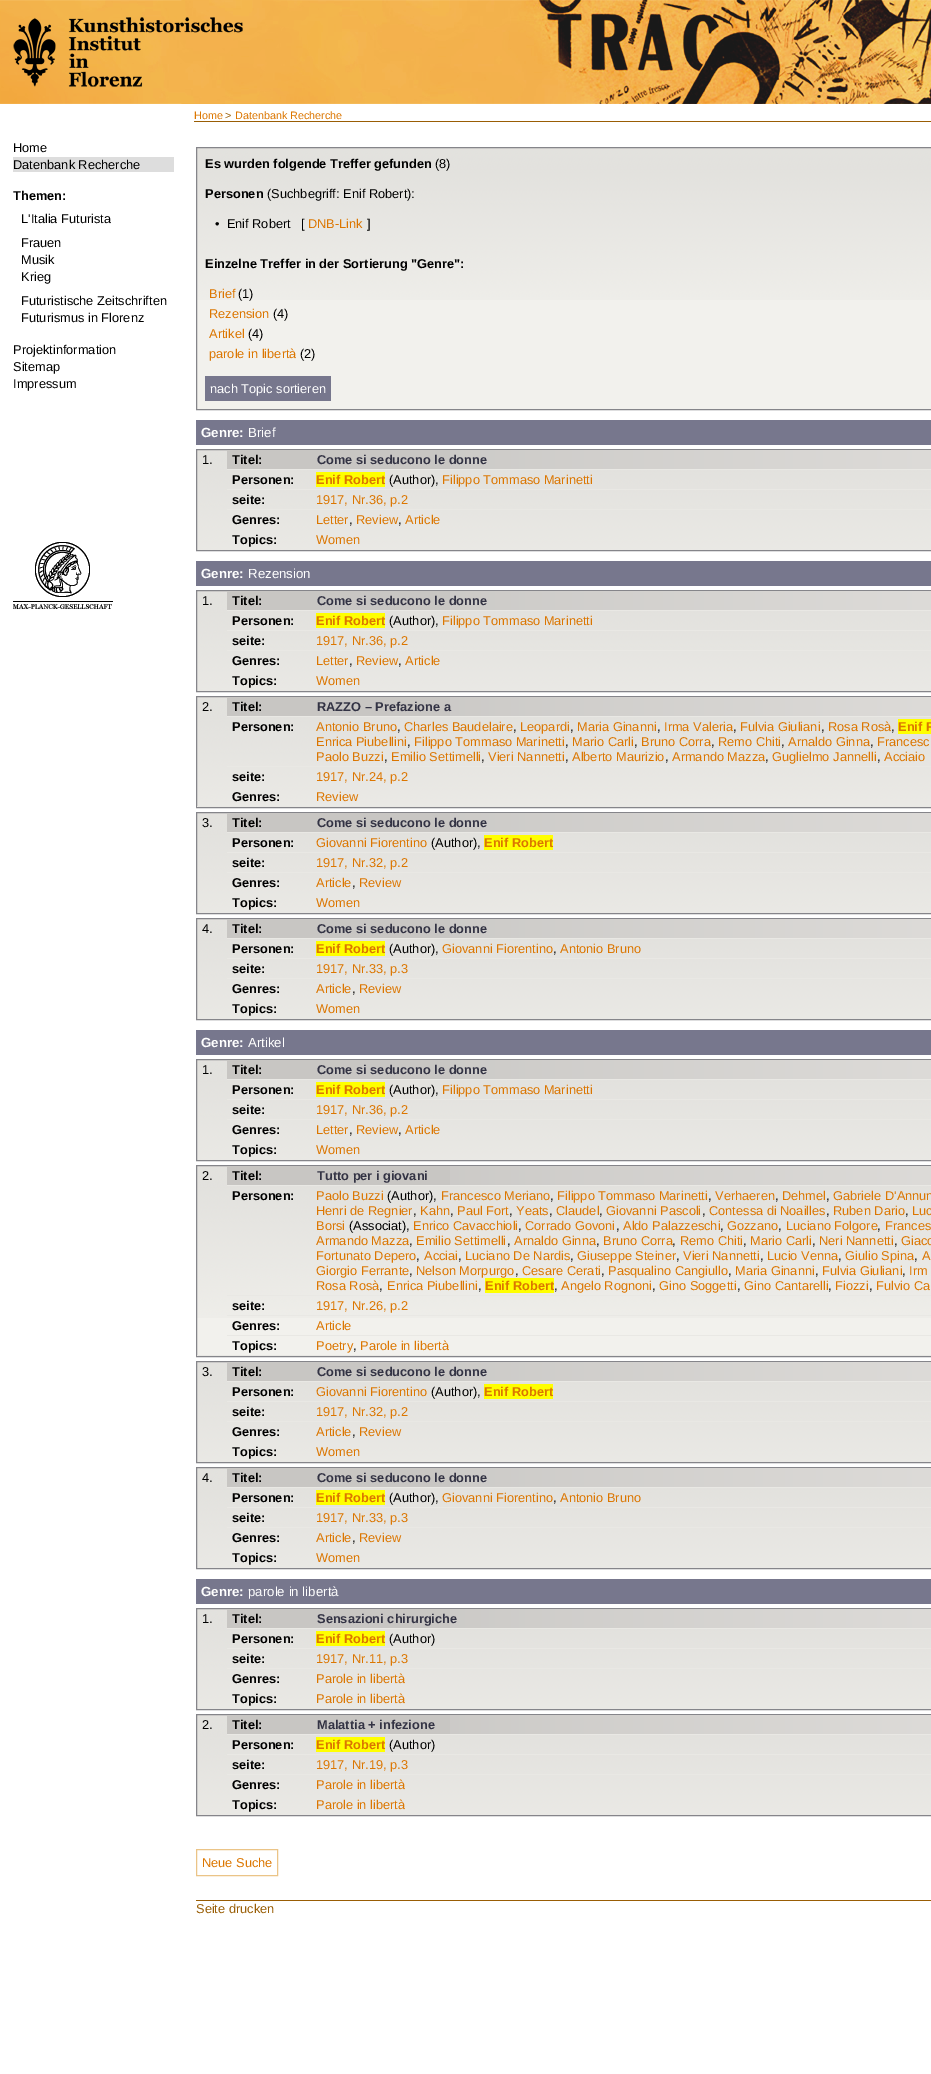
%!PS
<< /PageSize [931 2074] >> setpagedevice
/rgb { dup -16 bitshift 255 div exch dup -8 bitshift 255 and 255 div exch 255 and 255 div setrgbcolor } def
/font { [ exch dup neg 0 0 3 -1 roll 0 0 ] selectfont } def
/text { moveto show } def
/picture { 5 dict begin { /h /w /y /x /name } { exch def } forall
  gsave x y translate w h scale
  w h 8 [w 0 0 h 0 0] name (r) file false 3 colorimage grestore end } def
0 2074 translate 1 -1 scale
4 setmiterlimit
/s1 { /LiberationSans-Regular 12.8 font 16#000000 rgb } def
/s2 { /LiberationSans-Bold 12.8 font 16#000000 rgb } def
/s3 { /LiberationSans-Regular 10.75 font 16#DC7600 rgb } def
/s4 { /LiberationSans-Regular 10.75 font 16#995D04 rgb } def
/s5 { /LiberationSans-Regular 12.8 font 16#DC7600 rgb } def
/s6 { /LiberationSans-Regular 12.8 font 16#FFFFFF rgb } def
/s7 { /LiberationSans-Bold 13.25 font 16#FFFFFF rgb } def
/s8 { /LiberationSans-Regular 13.25 font 16#FFFFFF rgb } def
/s9 { /LiberationSans-Bold 12.8 font 16#333344 rgb } def
/s10 { /LiberationSans-Bold 12.8 font 16#DC7600 rgb } def
/s11 { /LiberationSans-Regular 12.8 font 16#995D04 rgb } def
16#FFFFFF rgb
0 0 931 2074 rectfill
(pic1.raw) 0 0 931 104 picture
s1
(Home) 13 152 text
16#DDDDDD rgb
13 157 161 15 rectfill
s1
(Datenbank Recherche) 13 169 text
s2
(Themen:) 13 200 text
s1
(L'Italia Futurista) 21 223 text
(Frauen) 21 247 text
(Musik) 21 264 text
(Krieg) 21 281 text
(Futuristische Zeitschriften) 21 305 text
(Futurismus in Florenz) 21 322 text
(Projektinformation) 13 354 text
(Sitemap) 13 371 text
(Impressum) 13 388 text
(pic2.raw) 13 542 100 67 picture
16#995D04 rgb
194 121 737 1 rectfill
s3
(Home) 194 119 text
s4
(>) 225 119 text
s3
(Datenbank Recherche) 235 119 text
16#F2F1ED rgb
197 300 734 109 rectfill
(pic3.raw) 197 148 734 152 picture
16#85858A rgb
196.5 147.5 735 262 rectstroke
s2
(Es wurden folgende Treffer gefunden) 205 168 text
s1
(\(8\)) 435 168 text
s2
(Personen) 205 198 text
s1
(\(Suchbegriff: Enif Robert\):) 267 198 text
(•  Enif Robert   [) 215 228 text
s5
(DNB-Link) 308 228 text
s1
(]) 367 228 text
s2
(Einzelne Treffer in der Sortierung "Genre":) 205 268 text
s5
(Brief) 209 298 text
s1
(\(1\)) 238 298 text
s5
(Rezension) 209 318 text
s1
(\(4\)) 273 318 text
s5
(Artikel) 209 338 text
s1
(\(4\)) 248 338 text
s5
(parole in libertà) 209 358 text
s1
(\(2\)) 300 358 text
16#77778D rgb
205 376 126 25 rectfill
s6
(nach Topic sortieren) 210 393 text
16#77778D rgb
196 420 735 25 rectfill
s7
(Genre:) 201 437 text
s8
(Brief) 248 437 text
(pic4.raw) 197 450 734 100 picture
16#85858A rgb
196.5 449.5 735 101 rectstroke
s1
(1.) 202 464 text
16#C8C6C3 rgb
227 450 223 19 rectfill
16#E9E8E4 rgb
227 469 704 1 rectfill
s2
(Titel:) 232 464 text
(pic5.raw) 450 450 481 19 picture
s9
(Come si seducono le donne) 317 464 text
16#E9E8E4 rgb
227 489 704 1 rectfill
s2
(Personen:) 232 484 text
16#FFFF00 rgb
316 472 69 15 rectfill
s10
(Enif Robert) 316 484 text
s1
(\(Author\),) 389 484 text
s5
(Filippo Tommaso Marinetti) 442 484 text
16#E9E8E4 rgb
227 509 704 1 rectfill
s2
(seite:) 232 504 text
s5
(1917, Nr.36, p.2) 316 504 text
s2
(Genres:) 232 524 text
s5
(Letter) 316 524 text
s1
(,) 349 524 text
s5
(Review) 356 524 text
s1
(,) 398 524 text
s5
(Article) 405 524 text
s2
(Topics:) 232 544 text
s5
(Women) 316 544 text
16#77778D rgb
196 561 735 25 rectfill
s7
(Genre:) 201 578 text
s8
(Rezension) 248 578 text
(pic4.raw) 197 591 734 100 picture
16#85858A rgb
196.5 590.5 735 101 rectstroke
s1
(1.) 202 605 text
16#C8C6C3 rgb
227 591 223 19 rectfill
16#E9E8E4 rgb
227 610 704 1 rectfill
s2
(Titel:) 232 605 text
(pic5.raw) 450 591 481 19 picture
s9
(Come si seducono le donne) 317 605 text
16#E9E8E4 rgb
227 630 704 1 rectfill
s2
(Personen:) 232 625 text
16#FFFF00 rgb
316 613 69 15 rectfill
s10
(Enif Robert) 316 625 text
s1
(\(Author\),) 389 625 text
s5
(Filippo Tommaso Marinetti) 442 625 text
16#E9E8E4 rgb
227 650 704 1 rectfill
s2
(seite:) 232 645 text
s5
(1917, Nr.36, p.2) 316 645 text
s2
(Genres:) 232 665 text
s5
(Letter) 316 665 text
s1
(,) 349 665 text
s5
(Review) 356 665 text
s1
(,) 398 665 text
s5
(Article) 405 665 text
s2
(Topics:) 232 685 text
s5
(Women) 316 685 text
(pic6.raw) 197 697 734 109 picture
16#85858A rgb
196.5 696.5 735 111 rectstroke
16#E9E8E4 rgb
197 806 734 1 rectfill
s1
(2.) 202 711 text
16#C8C6C3 rgb
227 697 223 19 rectfill
16#E9E8E4 rgb
227 716 704 1 rectfill
s2
(Titel:) 232 711 text
(pic5.raw) 450 697 481 19 picture
s9
(RAZZO – Prefazione a) 317 711 text
16#E9E8E4 rgb
227 766 704 1 rectfill
s2
(Personen:) 232 731 text
s5
(Antonio Bruno) 316 731 text
s1
(,) 397 731 text
s5
(Charles Baudelaire) 404 731 text
s1
(,) 513 731 text
s5
(Leopardi) 520 731 text
s1
(,) 570 731 text
s5
(Maria Ginanni) 577 731 text
s1
(,) 657 731 text
s5
(Irma Valeria) 664 731 text
s1
(,) 733 731 text
s5
(Fulvia Giuliani) 740 731 text
s1
(,) 821 731 text
s5
(Rosa Rosà) 828 731 text
s1
(,) 891 731 text
16#FFFF00 rgb
898 719 33 15 rectfill
s10
(Enif R) 898 731 text
s5
(Enrica Piubellini) 316 746 text
s1
(,) 407 746 text
s5
(Filippo Tommaso Marinetti) 414 746 text
s1
(,) 565 746 text
s5
(Mario Carli) 572 746 text
s1
(,) 634 746 text
s5
(Bruno Corra) 641 746 text
s1
(,) 711 746 text
s5
(Remo Chiti) 718 746 text
s1
(,) 781 746 text
s5
(Arnaldo Ginna) 788 746 text
s1
(,) 870 746 text
s5
(Francesc) 877 746 text
(Paolo Buzzi) 316 761 text
s1
(,) 384 761 text
s5
(Emilio Settimelli) 391 761 text
s1
(,) 481 761 text
s5
(Vieri Nannetti) 488 761 text
s1
(,) 565 761 text
s5
(Alberto Maurizio) 572 761 text
s1
(,) 665 761 text
s5
(Armando Mazza) 672 761 text
s1
(,) 765 761 text
s5
(Guglielmo Jannelli) 772 761 text
s1
(,) 877 761 text
s5
(Acciaio) 884 761 text
s2
(seite:) 232 781 text
s5
(1917, Nr.24, p.2) 316 781 text
s2
(Genres:) 232 801 text
s5
(Review) 316 801 text
(pic4.raw) 197 813 734 100 picture
16#85858A rgb
196.5 812.5 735 101 rectstroke
s1
(3.) 202 827 text
16#C8C6C3 rgb
227 813 223 19 rectfill
16#E9E8E4 rgb
227 832 704 1 rectfill
s2
(Titel:) 232 827 text
(pic5.raw) 450 813 481 19 picture
s9
(Come si seducono le donne) 317 827 text
16#E9E8E4 rgb
227 852 704 1 rectfill
s2
(Personen:) 232 847 text
s5
(Giovanni Fiorentino) 316 847 text
s1
(\(Author\),) 431 847 text
16#FFFF00 rgb
484 835 69 15 rectfill
s10
(Enif Robert) 484 847 text
16#E9E8E4 rgb
227 872 704 1 rectfill
s2
(seite:) 232 867 text
s5
(1917, Nr.32, p.2) 316 867 text
s2
(Genres:) 232 887 text
s5
(Article) 316 887 text
s1
(,) 352 887 text
s5
(Review) 359 887 text
s2
(Topics:) 232 907 text
s5
(Women) 316 907 text
(pic4.raw) 197 919 734 100 picture
16#85858A rgb
196.5 918.5 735 101 rectstroke
s1
(4.) 202 933 text
16#C8C6C3 rgb
227 919 223 19 rectfill
16#E9E8E4 rgb
227 938 704 1 rectfill
s2
(Titel:) 232 933 text
(pic5.raw) 450 919 481 19 picture
s9
(Come si seducono le donne) 317 933 text
16#E9E8E4 rgb
227 958 704 1 rectfill
s2
(Personen:) 232 953 text
16#FFFF00 rgb
316 941 69 15 rectfill
s10
(Enif Robert) 316 953 text
s1
(\(Author\),) 389 953 text
s5
(Giovanni Fiorentino) 442 953 text
s1
(,) 553 953 text
s5
(Antonio Bruno) 560 953 text
16#E9E8E4 rgb
227 978 704 1 rectfill
s2
(seite:) 232 973 text
s5
(1917, Nr.33, p.3) 316 973 text
s2
(Genres:) 232 993 text
s5
(Article) 316 993 text
s1
(,) 352 993 text
s5
(Review) 359 993 text
s2
(Topics:) 232 1013 text
s5
(Women) 316 1013 text
16#77778D rgb
196 1030 735 25 rectfill
s7
(Genre:) 201 1047 text
s8
(Artikel) 248 1047 text
(pic4.raw) 197 1060 734 100 picture
16#85858A rgb
196.5 1059.5 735 101 rectstroke
s1
(1.) 202 1074 text
16#C8C6C3 rgb
227 1060 223 19 rectfill
16#E9E8E4 rgb
227 1079 704 1 rectfill
s2
(Titel:) 232 1074 text
(pic5.raw) 450 1060 481 19 picture
s9
(Come si seducono le donne) 317 1074 text
16#E9E8E4 rgb
227 1099 704 1 rectfill
s2
(Personen:) 232 1094 text
16#FFFF00 rgb
316 1082 69 15 rectfill
s10
(Enif Robert) 316 1094 text
s1
(\(Author\),) 389 1094 text
s5
(Filippo Tommaso Marinetti) 442 1094 text
16#E9E8E4 rgb
227 1119 704 1 rectfill
s2
(seite:) 232 1114 text
s5
(1917, Nr.36, p.2) 316 1114 text
s2
(Genres:) 232 1134 text
s5
(Letter) 316 1134 text
s1
(,) 349 1134 text
s5
(Review) 356 1134 text
s1
(,) 398 1134 text
s5
(Article) 405 1134 text
s2
(Topics:) 232 1154 text
s5
(Women) 316 1154 text
16#F2F1ED rgb
197 1318 734 37 rectfill
(pic3.raw) 197 1166 734 152 picture
16#85858A rgb
196.5 1165.5 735 191 rectstroke
16#E9E8E4 rgb
197 1355 734 1 rectfill
s1
(2.) 202 1180 text
16#C8C6C3 rgb
227 1166 223 19 rectfill
16#E9E8E4 rgb
227 1185 704 1 rectfill
s2
(Titel:) 232 1180 text
(pic5.raw) 450 1166 481 19 picture
s9
(Tutto per i giovani) 317 1180 text
16#E9E8E4 rgb
227 1295 704 1 rectfill
s2
(Personen:) 232 1200 text
s5
(Paolo Buzzi) 316 1200 text
s1
(\(Author\),) 387 1200 text
s5
(Francesco Meriano) 441 1200 text
s1
(,) 550 1200 text
s5
(Filippo Tommaso Marinetti) 557 1200 text
s1
(,) 708 1200 text
s5
(Verhaeren) 715 1200 text
s1
(,) 775 1200 text
s5
(Dehmel) 782 1200 text
s1
(,) 826 1200 text
s5
(Gabriele D'Annun) 833 1200 text
(Henri de Regnier) 316 1215 text
s1
(,) 413 1215 text
s5
(Kahn) 420 1215 text
s1
(,) 450 1215 text
s5
(Paul Fort) 457 1215 text
s1
(,) 509 1215 text
s5
(Yeats) 516 1215 text
s1
(,) 549 1215 text
s5
(Claudel) 556 1215 text
s1
(,) 599 1215 text
s5
(Giovanni Pascoli) 606 1215 text
s1
(,) 702 1215 text
s5
(Contessa di Noailles) 709 1215 text
s1
(,) 826 1215 text
s5
(Ruben Dario) 833 1215 text
s1
(,) 905 1215 text
s5
(Luc) 912 1215 text
(Borsi) 316 1230 text
s1
(\(Associat\),) 349 1230 text
s5
(Enrico Cavacchioli) 413 1230 text
s1
(,) 518 1230 text
s5
(Corrado Govoni) 525 1230 text
s1
(,) 616 1230 text
s5
(Aldo Palazzeschi) 623 1230 text
s1
(,) 720 1230 text
s5
(Gozzano) 727 1230 text
s1
(,) 778 1230 text
s5
(Luciano Folgore) 786 1230 text
s1
(,) 877 1230 text
s5
(Frances) 885 1230 text
(Armando Mazza) 316 1245 text
s1
(,) 409 1245 text
s5
(Emilio Settimelli) 416 1245 text
s1
(,) 507 1245 text
s5
(Arnaldo Ginna) 514 1245 text
s1
(,) 596 1245 text
s5
(Bruno Corra) 603 1245 text
s1
(,) 672 1245 text
s5
(Remo Chiti) 680 1245 text
s1
(,) 743 1245 text
s5
(Mario Carli) 750 1245 text
s1
(,) 812 1245 text
s5
(Neri Nannetti) 819 1245 text
s1
(,) 894 1245 text
s5
(Giaco) 901 1245 text
(Fortunato Depero) 316 1260 text
s1
(,) 416 1260 text
s5
(Acciai) 424 1260 text
s1
(,) 458 1260 text
s5
(Luciano De Nardis) 465 1260 text
s1
(,) 570 1260 text
s5
(Giuseppe Steiner) 577 1260 text
s1
(,) 676 1260 text
s5
(Vieri Nannetti) 683 1260 text
s1
(,) 760 1260 text
s5
(Lucio Venna) 767 1260 text
s1
(,) 838 1260 text
s5
(Giulio Spina) 845 1260 text
s1
(,) 914 1260 text
s5
(A) 922 1260 text
(Giorgio Ferrante) 316 1275 text
s1
(,) 409 1275 text
s5
(Nelson Morpurgo) 416 1275 text
s1
(,) 515 1275 text
s5
(Cesare Cerati) 522 1275 text
s1
(,) 601 1275 text
s5
(Pasqualino Cangiullo) 608 1275 text
s1
(,) 728 1275 text
s5
(Maria Ginanni) 735 1275 text
s1
(,) 815 1275 text
s5
(Fulvia Giuliani) 822 1275 text
s1
(,) 902 1275 text
s5
(Irm) 909 1275 text
(Rosa Rosà) 316 1290 text
s1
(,) 379 1290 text
s5
(Enrica Piubellini) 387 1290 text
s1
(,) 478 1290 text
16#FFFF00 rgb
485 1278 69 15 rectfill
s10
(Enif Robert) 485 1290 text
s1
(,) 554 1290 text
s5
(Angelo Rognoni) 561 1290 text
s1
(,) 652 1290 text
s5
(Gino Soggetti) 659 1290 text
s1
(,) 737 1290 text
s5
(Gino Cantarelli) 744 1290 text
s1
(,) 828 1290 text
s5
(Fiozzi) 835 1290 text
s1
(,) 869 1290 text
s5
(Fulvio Ca) 876 1290 text
16#E9E8E4 rgb
227 1315 704 1 rectfill
s2
(seite:) 232 1310 text
s5
(1917, Nr.26, p.2) 316 1310 text
16#E9E8E4 rgb
227 1335 704 1 rectfill
s2
(Genres:) 232 1330 text
s5
(Article) 316 1330 text
s2
(Topics:) 232 1350 text
s5
(Poetry) 316 1350 text
s1
(,) 353 1350 text
s5
(Parole in libertà) 360 1350 text
(pic4.raw) 197 1362 734 100 picture
16#85858A rgb
196.5 1361.5 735 101 rectstroke
s1
(3.) 202 1376 text
16#C8C6C3 rgb
227 1362 223 19 rectfill
16#E9E8E4 rgb
227 1381 704 1 rectfill
s2
(Titel:) 232 1376 text
(pic5.raw) 450 1362 481 19 picture
s9
(Come si seducono le donne) 317 1376 text
16#E9E8E4 rgb
227 1401 704 1 rectfill
s2
(Personen:) 232 1396 text
s5
(Giovanni Fiorentino) 316 1396 text
s1
(\(Author\),) 431 1396 text
16#FFFF00 rgb
484 1384 69 15 rectfill
s10
(Enif Robert) 484 1396 text
16#E9E8E4 rgb
227 1421 704 1 rectfill
s2
(seite:) 232 1416 text
s5
(1917, Nr.32, p.2) 316 1416 text
s2
(Genres:) 232 1436 text
s5
(Article) 316 1436 text
s1
(,) 352 1436 text
s5
(Review) 359 1436 text
s2
(Topics:) 232 1456 text
s5
(Women) 316 1456 text
(pic4.raw) 197 1468 734 100 picture
16#85858A rgb
196.5 1467.5 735 101 rectstroke
s1
(4.) 202 1482 text
16#C8C6C3 rgb
227 1468 223 19 rectfill
16#E9E8E4 rgb
227 1487 704 1 rectfill
s2
(Titel:) 232 1482 text
(pic5.raw) 450 1468 481 19 picture
s9
(Come si seducono le donne) 317 1482 text
16#E9E8E4 rgb
227 1507 704 1 rectfill
s2
(Personen:) 232 1502 text
16#FFFF00 rgb
316 1490 69 15 rectfill
s10
(Enif Robert) 316 1502 text
s1
(\(Author\),) 389 1502 text
s5
(Giovanni Fiorentino) 442 1502 text
s1
(,) 553 1502 text
s5
(Antonio Bruno) 560 1502 text
16#E9E8E4 rgb
227 1527 704 1 rectfill
s2
(seite:) 232 1522 text
s5
(1917, Nr.33, p.3) 316 1522 text
s2
(Genres:) 232 1542 text
s5
(Article) 316 1542 text
s1
(,) 352 1542 text
s5
(Review) 359 1542 text
s2
(Topics:) 232 1562 text
s5
(Women) 316 1562 text
16#77778D rgb
196 1579 735 25 rectfill
s7
(Genre:) 201 1596 text
s8
(parole in libertà) 248 1596 text
(pic4.raw) 197 1609 734 100 picture
16#85858A rgb
196.5 1608.5 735 101 rectstroke
s1
(1.) 202 1623 text
16#C8C6C3 rgb
227 1609 223 19 rectfill
16#E9E8E4 rgb
227 1628 704 1 rectfill
s2
(Titel:) 232 1623 text
(pic5.raw) 450 1609 481 19 picture
s9
(Sensazioni chirurgiche) 317 1623 text
16#E9E8E4 rgb
227 1648 704 1 rectfill
s2
(Personen:) 232 1643 text
16#FFFF00 rgb
316 1631 69 15 rectfill
s10
(Enif Robert) 316 1643 text
s1
(\(Author\)) 389 1643 text
16#E9E8E4 rgb
227 1668 704 1 rectfill
s2
(seite:) 232 1663 text
s5
(1917, Nr.11, p.3) 316 1663 text
s2
(Genres:) 232 1683 text
s5
(Parole in libertà) 316 1683 text
s2
(Topics:) 232 1703 text
s5
(Parole in libertà) 316 1703 text
(pic4.raw) 197 1715 734 100 picture
16#85858A rgb
196.5 1714.5 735 101 rectstroke
s1
(2.) 202 1729 text
16#C8C6C3 rgb
227 1715 223 19 rectfill
16#E9E8E4 rgb
227 1734 704 1 rectfill
s2
(Titel:) 232 1729 text
(pic5.raw) 450 1715 481 19 picture
s9
(Malattia + infezione) 317 1729 text
16#E9E8E4 rgb
227 1754 704 1 rectfill
s2
(Personen:) 232 1749 text
16#FFFF00 rgb
316 1737 69 15 rectfill
s10
(Enif Robert) 316 1749 text
s1
(\(Author\)) 389 1749 text
16#E9E8E4 rgb
227 1774 704 1 rectfill
s2
(seite:) 232 1769 text
s5
(1917, Nr.19, p.3) 316 1769 text
s2
(Genres:) 232 1789 text
s5
(Parole in libertà) 316 1789 text
s2
(Topics:) 232 1809 text
s5
(Parole in libertà) 316 1809 text
16#EBC487 rgb
196.5 1849.5 81 26 rectstroke
s5
(Neue Suche) 202 1867 text
16#995D04 rgb
196 1900 735 1 rectfill
(Seite drucken) 196 1913 text
showpage
